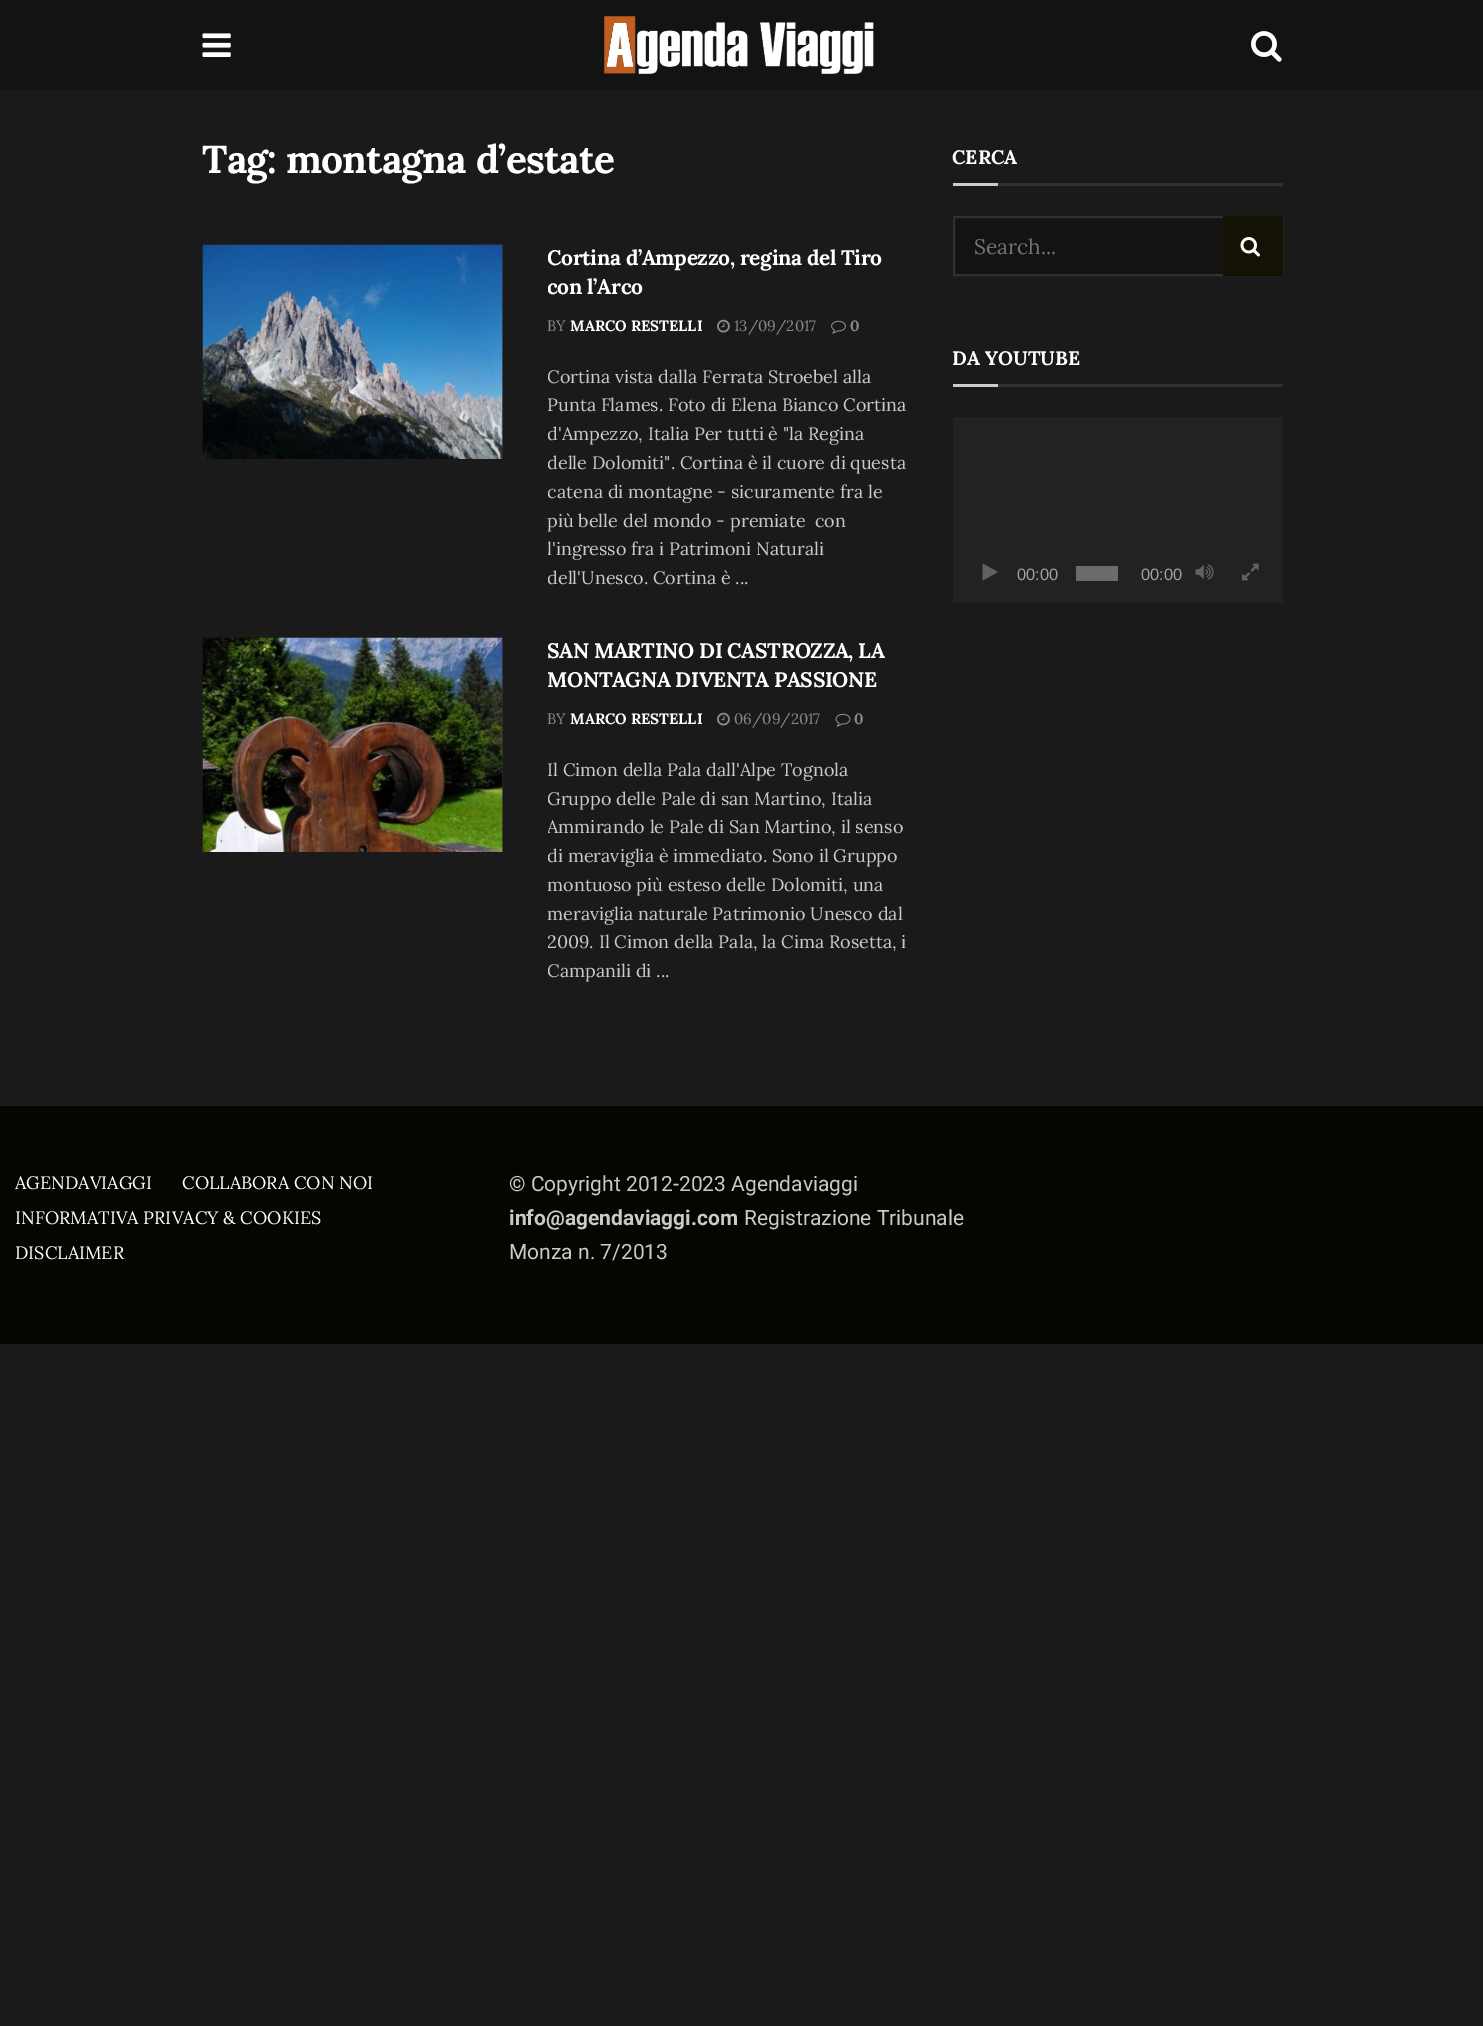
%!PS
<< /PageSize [1483 2026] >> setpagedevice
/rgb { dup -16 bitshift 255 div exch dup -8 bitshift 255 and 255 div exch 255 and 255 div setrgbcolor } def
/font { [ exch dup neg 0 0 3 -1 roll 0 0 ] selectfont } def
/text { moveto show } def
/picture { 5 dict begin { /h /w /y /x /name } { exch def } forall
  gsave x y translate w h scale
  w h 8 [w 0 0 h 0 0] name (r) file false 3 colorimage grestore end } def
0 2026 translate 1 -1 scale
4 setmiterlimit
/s1 { /Lora-Regular 15 font 16#8B8B8B rgb } def
/s2 { /Lora-Bold 15 font 16#FFFFFF rgb } def
/s3 { /Lora-Bold 15 font 16#8B8B8B rgb } def
/s4 { /Lora-Regular 18 font 16#CACACA rgb } def
/s5 { /Lora-Bold 19.5 font 16#FFFFFF rgb } def
/s6 { /Lora-Regular 21 font 16#757575 rgb } def
/s7 { /LiberationSans-Regular 16.5 font 16#A0A0A0 rgb } def
/s8 { /Lora-Regular 18 font 16#FFFFFF rgb } def
/s9 { /Roboto-Regular 21 font 16#CACACA rgb } def
/s10 { /Roboto-Bold 21 font 16#CACACA rgb } def
16#1A1A1A rgb
0 0 1483 2026 rectfill
16#131313 rgb
0 0 1483 90 rectfill
(pic1.raw) 202 33 29 24 picture
(pic2.raw) 604 16 270 58 picture
(pic3.raw) 1251 31 31 31 picture
/Lora-Bold 39 font
16#FFFFFF rgb
202 173 moveto -0.75 0 (Tag: montagna d’estate) ashow
16#282828 rgb
502 245 1 214 rectfill
(pic5.raw) 441 244 62 215 picture
(pic4.raw) 202 244 301 215 picture
gsave
548 245 360 348 rectclip
/Lora-Bold 21 font
16#FFFFFF rgb
547 265 moveto -0.4 0 (Cortina d’Ampezzo, regina del Tiro) ashow
547 294 moveto -0.4 0 (con l’Arco) ashow
grestore
s1
(BY) 547 331 text
s2
(MARCO RESTELLI) 570 331 text
(pic6.raw) 717 319 13 14 picture
s1
(13/09/2017) 734 331 text
(pic7.raw) 831 320 15 14 picture
s3
(0) 850 331 text
gsave
548 245 360 348 rectclip
s4
(Cortina vista dalla Ferrata Stroebel alla) 547 383 text
grestore
s4
(Punta Flames. Foto di Elena Bianco Cortina) 547 411 text
gsave
548 245 360 348 rectclip
(d'Ampezzo, Italia Per tutti è "la Regina) 547 440 text
(delle Dolomiti". Cortina è il cuore di questa) 547 469 text
(catena di montagne - sicuramente fra le) 547 498 text
grestore
(più belle del mondo - premiate  con) 547 527 text
gsave
548 245 360 348 rectclip
(l'ingresso fra i Patrimoni Naturali) 547 555 text
(dell'Unesco. Cortina è ...) 547 584 text
grestore
16#282828 rgb
502 638 1 214 rectfill
(pic5.raw) 441 637 62 215 picture
(pic8.raw) 202 637 301 215 picture
gsave
548 638 360 348 rectclip
/Lora-Bold 21 font
16#FFFFFF rgb
547 658 moveto -0.4 0 (SAN MARTINO DI CASTROZZA, LA) ashow
547 687 moveto -0.4 0 (MONTAGNA DIVENTA PASSIONE) ashow
grestore
s1
(BY) 547 724 text
s2
(MARCO RESTELLI) 570 724 text
(pic6.raw) 717 712 13 14 picture
s1
(06/09/2017) 734 724 text
(pic9.raw) 835 713 16 14 picture
s3
(0) 854 724 text
s4
(Il Cimon della Pala dall'Alpe Tognola) 547 776 text
gsave
548 638 360 348 rectclip
(Gruppo delle Pale di san Martino, Italia) 547 805 text
(Ammirando le Pale di San Martino, il senso) 547 833 text
(di meraviglia è immediato. Sono il Gruppo) 547 862 text
grestore
(montuoso più esteso delle Dolomiti, una) 547 891 text
(meraviglia naturale Patrimonio Unesco dal) 547 920 text
gsave
548 638 360 348 rectclip
(2009. Il Cimon della Pala, la Cima Rosetta, i) 547 948 text
(Campanili di ...) 547 977 text
grestore
16#303030 rgb
998 183 285 3 rectfill
s5
(CERCA) 952 164 text
16#CCCCCC rgb
953 183 45 3 rectfill
16#131313 rgb
955 218 268 56 rectfill
16#303030 rgb
2 setlinewidth
954 217 328 58 rectstroke
s6
(Search...) 974 254 text
16#141204 rgb
1223 216 60 60 rectfill
(pic10.raw) 1240 237 20 20 picture
16#303030 rgb
998 384 285 3 rectfill
s5
(DA YOUTUBE) 952 365 text
16#CCCCCC rgb
953 384 45 3 rectfill
16#222222 rgb
953 417 330 186 rectfill
(pic11.raw) 982 563 16 18 picture
s7
(00:00) 1017 580 text
16#6B6B6B rgb
1076 566 42 15 rectfill
s7
(00:00) 1141 580 text
(pic12.raw) 1195 564 19 16 picture
(pic13.raw) 1242 563 17 18 picture
16#060502 rgb
0 1106 1483 238 rectfill
s8
(AGENDAVIAGGI) 15 1189 text
(COLLABORA CON NOI) 182 1189 text
(INFORMATIVA PRIVACY & COOKIES) 15 1224 text
(DISCLAIMER) 15 1259 text
s9
(© Copyright 2012-2023 Agendaviaggi) 509 1191 text
s10
(info@agendaviaggi.com) 509 1225 text
s9
(Registrazione Tribunale) 744 1225 text
(Monza n. 7/2013) 509 1259 text
showpage
